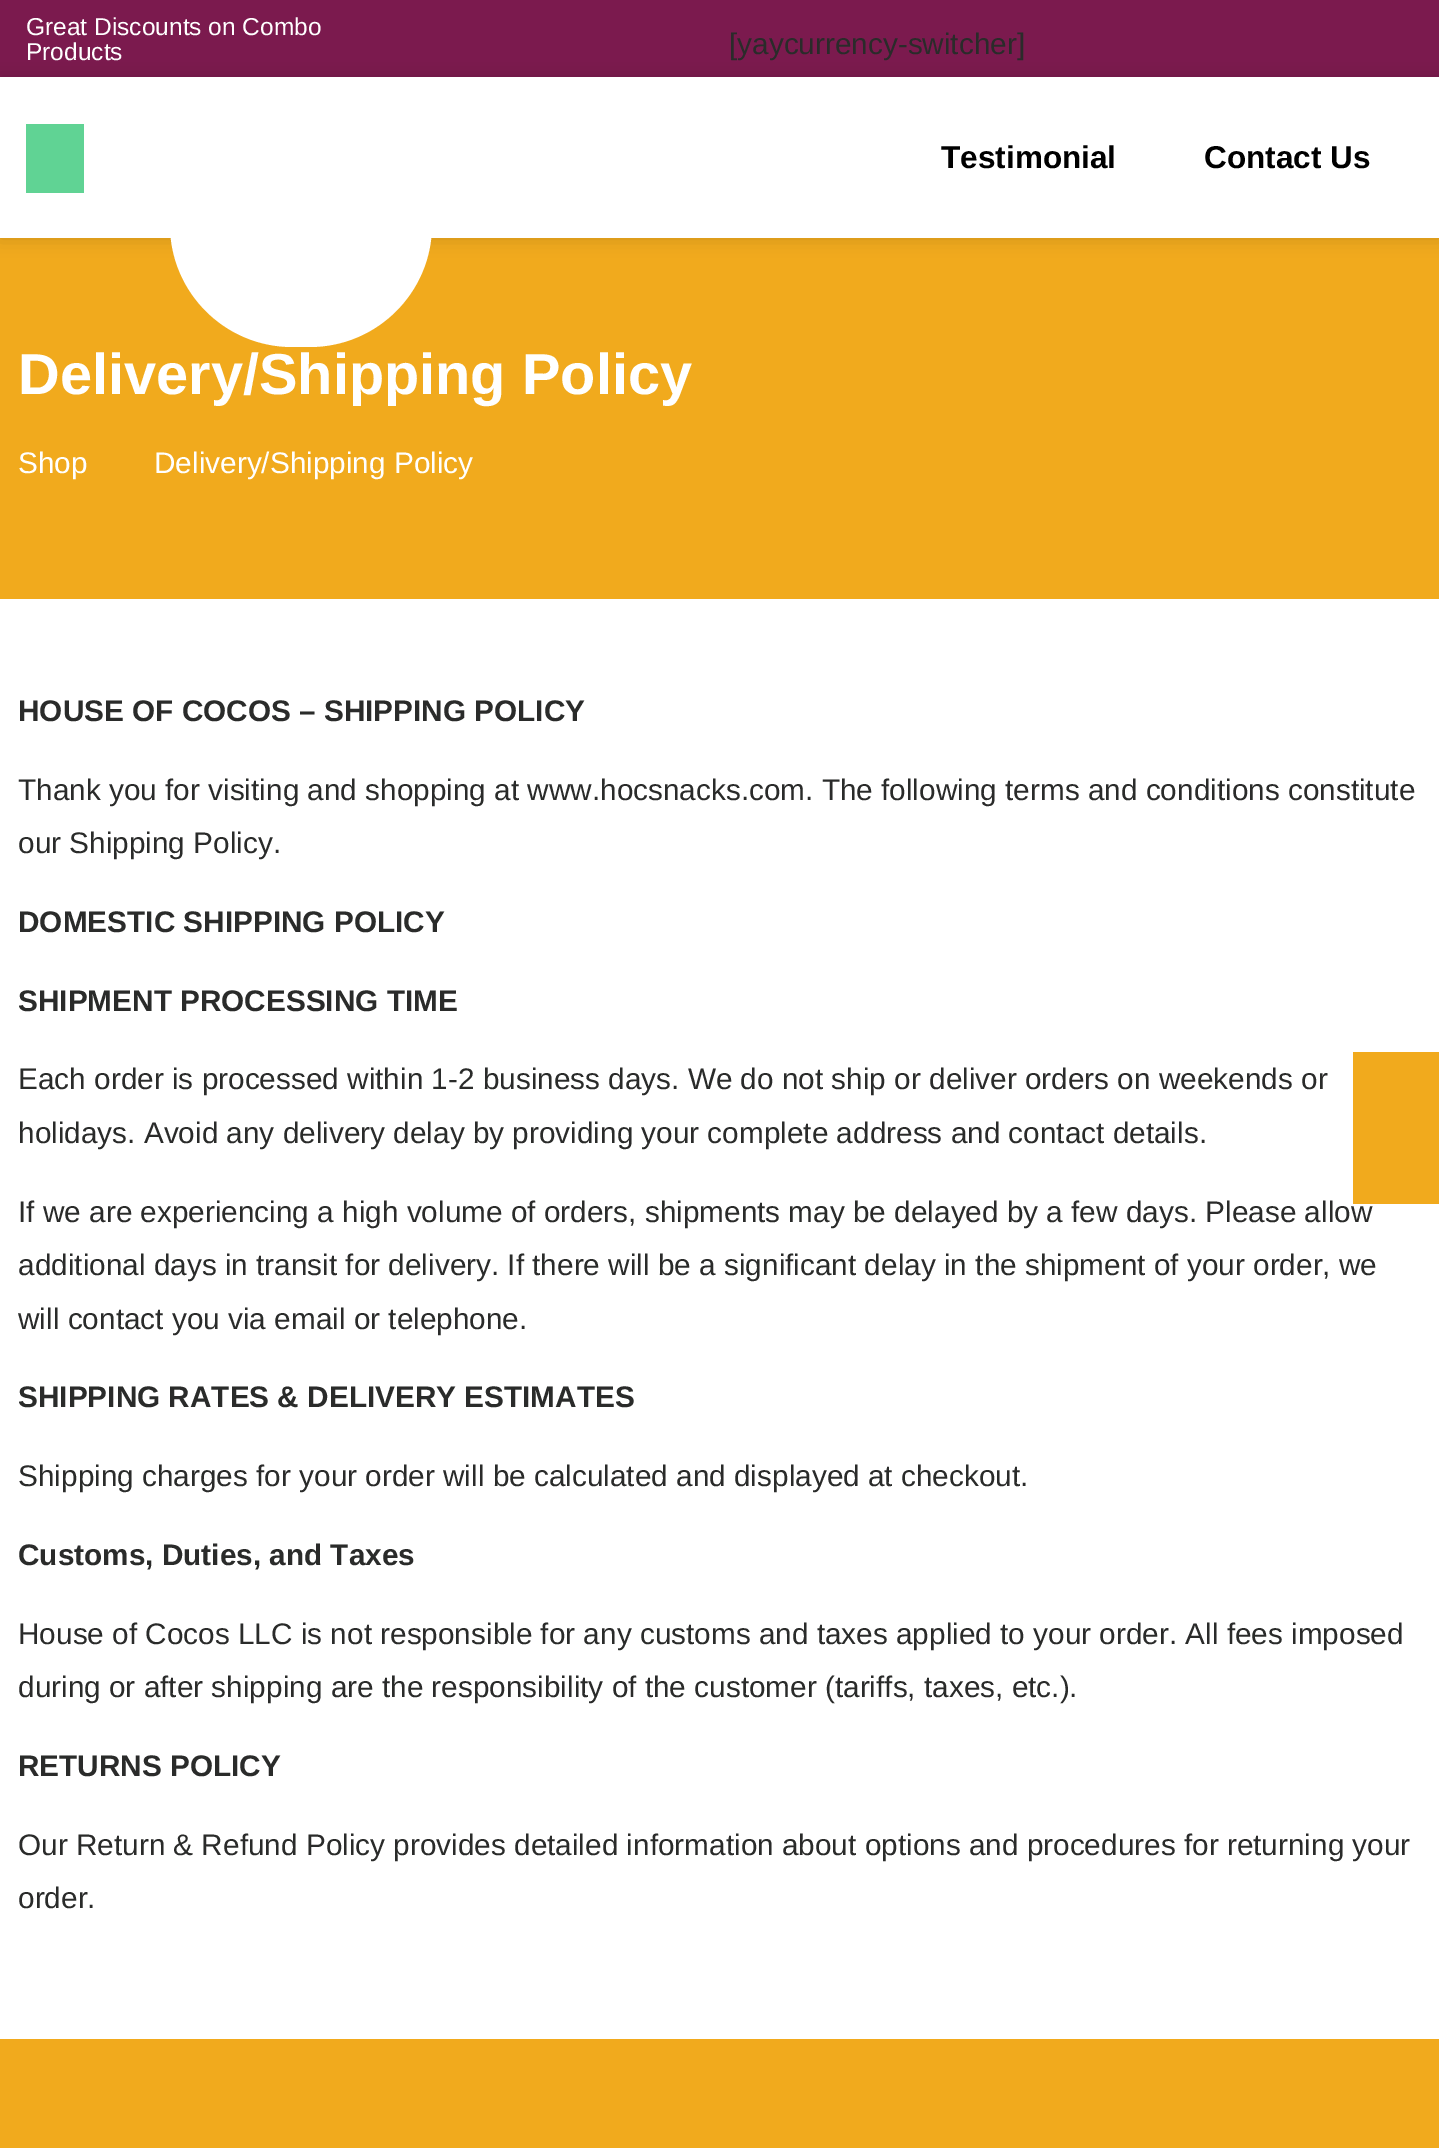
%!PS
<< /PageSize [1439 2148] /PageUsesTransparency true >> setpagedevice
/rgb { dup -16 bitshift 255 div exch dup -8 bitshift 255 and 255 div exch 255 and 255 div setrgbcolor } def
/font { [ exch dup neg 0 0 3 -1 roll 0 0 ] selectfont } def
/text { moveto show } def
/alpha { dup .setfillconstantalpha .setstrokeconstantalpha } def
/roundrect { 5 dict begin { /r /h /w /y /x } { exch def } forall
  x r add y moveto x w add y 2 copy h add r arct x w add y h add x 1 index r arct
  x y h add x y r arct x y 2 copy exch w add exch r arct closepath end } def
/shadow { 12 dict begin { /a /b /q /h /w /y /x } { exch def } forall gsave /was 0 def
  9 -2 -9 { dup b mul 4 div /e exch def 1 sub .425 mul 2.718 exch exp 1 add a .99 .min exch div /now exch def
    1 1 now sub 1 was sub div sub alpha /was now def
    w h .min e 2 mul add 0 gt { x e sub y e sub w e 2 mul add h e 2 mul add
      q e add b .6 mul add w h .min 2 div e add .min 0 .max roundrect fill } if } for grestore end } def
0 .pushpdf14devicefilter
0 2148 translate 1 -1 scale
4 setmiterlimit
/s1 { /LiberationSans-Regular 24.5 font 16#FFFFFF rgb } def
/s2 { /LiberationSans-Regular 29.75 font 16#2A2B2A rgb } def
/s3 { /LiberationSans-Bold 31.5 font 16#000000 rgb } def
/s4 { /LiberationSans-Bold 57.75 font 16#FFFFFF rgb } def
/s5 { /LiberationSans-Regular 29.75 font 16#FFFFFF rgb } def
/s6 { /LiberationSans-Bold 29.75 font 16#2A2B2A rgb } def
16#FFFFFF rgb
0 0 1439 2148 rectfill
16#7B1A4E rgb
0 0 1439 77 rectfill
s1
(Great Discounts on Combo) 26 35 text
(Products) 26 60 text
s2
([yaycurrency-switcher]) 729 54 text
16#F1AA1D rgb
0 238 1439 361 rectfill
gsave
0 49 moveto 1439 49 lineto 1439 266 lineto 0 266 lineto closepath 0 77 moveto 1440 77 lineto 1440 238 lineto 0 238 lineto closepath eoclip newpath
16#000000 rgb
0 77 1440 161 0 9 0.15 shadow
grestore
16#60D394 rgb
26 124 58 69 rectfill
16#FFFFFF rgb
170 102 262 245 122.5 roundrect fill
s3
(Testimonial) 941 168 text
(Contact Us) 1204 168 text
s4
(Delivery/Shipping Policy) 18 394 text
s5
(Shop) 18 473 text
(Delivery/Shipping Policy) 154 473 text
s6
(HOUSE OF COCOS – SHIPPING POLICY) 18 721 text
s2
(Thank you for visiting and shopping at www.hocsnacks.com. The following terms and conditions constitute) 18 800 text
(our Shipping Policy.) 18 853 text
s6
(DOMESTIC SHIPPING POLICY) 18 932 text
(SHIPMENT PROCESSING TIME) 18 1011 text
s2
(Each order is processed within 1-2 business days. We do not ship or deliver orders on weekends or) 18 1089 text
(holidays. Avoid any delivery delay by providing your complete address and contact details.) 18 1143 text
(If we are experiencing a high volume of orders, shipments may be delayed by a few days. Please allow) 18 1222 text
(additional days in transit for delivery. If there will be a significant delay in the shipment of your order, we) 18 1275 text
(will contact you via email or telephone.) 18 1329 text
s6
(SHIPPING RATES & DELIVERY ESTIMATES) 18 1407 text
s2
(Shipping charges for your order will be calculated and displayed at checkout.) 18 1486 text
s6
(Customs, Duties, and Taxes) 18 1565 text
s2
(House of Cocos LLC is not responsible for any customs and taxes applied to your order. All fees imposed) 18 1644 text
(during or after shipping are the responsibility of the customer \(tariffs, taxes, etc.\).) 18 1697 text
s6
(RETURNS POLICY) 18 1776 text
s2
(Our Return & Refund Policy provides detailed information about options and procedures for returning your) 18 1855 text
(order.) 18 1908 text
16#F1AA1D rgb
0 2039 1439 109 rectfill
1353 1052 86 152 rectfill
.poppdf14devicefilter showpage
